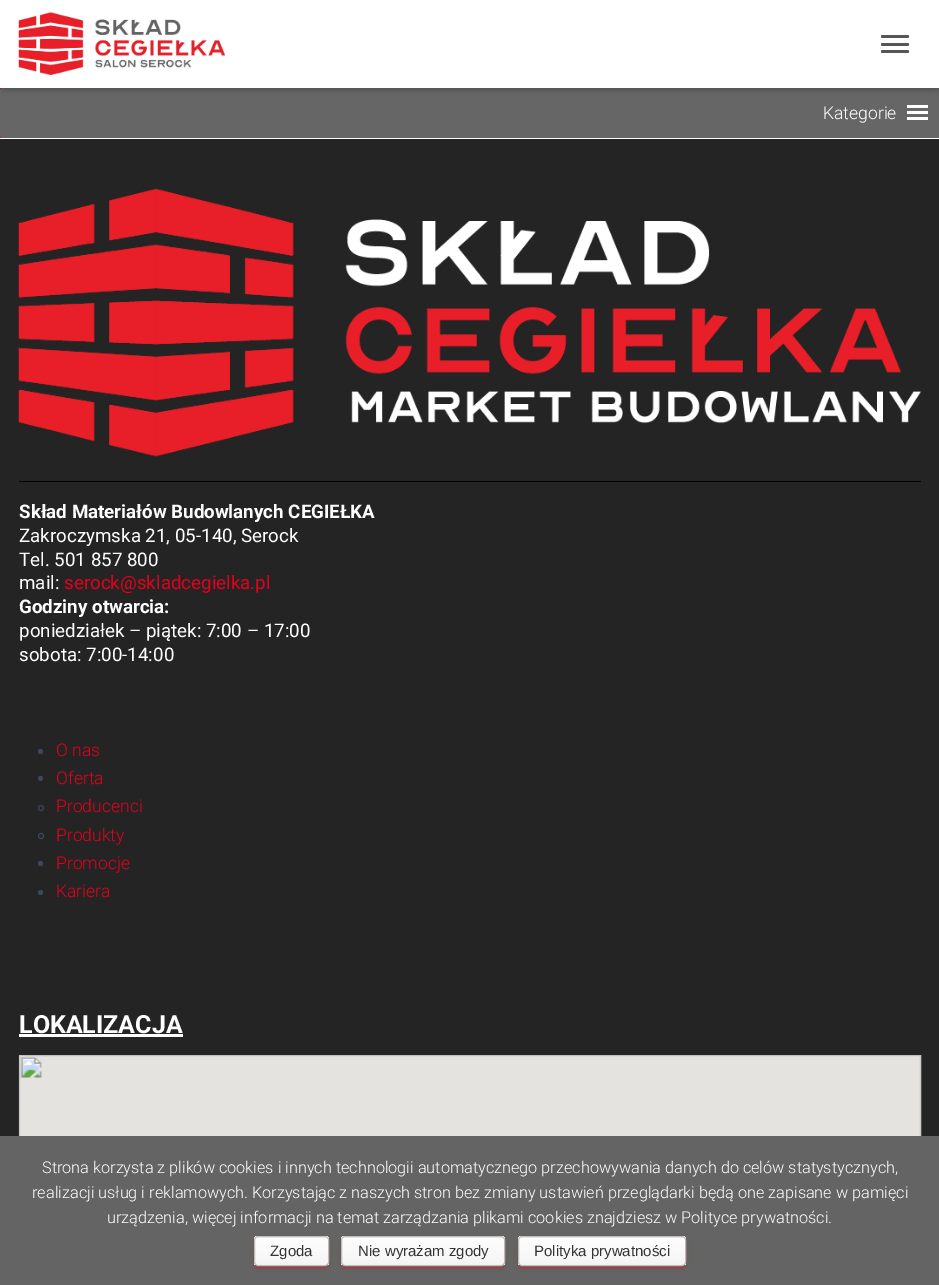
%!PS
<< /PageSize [939 1285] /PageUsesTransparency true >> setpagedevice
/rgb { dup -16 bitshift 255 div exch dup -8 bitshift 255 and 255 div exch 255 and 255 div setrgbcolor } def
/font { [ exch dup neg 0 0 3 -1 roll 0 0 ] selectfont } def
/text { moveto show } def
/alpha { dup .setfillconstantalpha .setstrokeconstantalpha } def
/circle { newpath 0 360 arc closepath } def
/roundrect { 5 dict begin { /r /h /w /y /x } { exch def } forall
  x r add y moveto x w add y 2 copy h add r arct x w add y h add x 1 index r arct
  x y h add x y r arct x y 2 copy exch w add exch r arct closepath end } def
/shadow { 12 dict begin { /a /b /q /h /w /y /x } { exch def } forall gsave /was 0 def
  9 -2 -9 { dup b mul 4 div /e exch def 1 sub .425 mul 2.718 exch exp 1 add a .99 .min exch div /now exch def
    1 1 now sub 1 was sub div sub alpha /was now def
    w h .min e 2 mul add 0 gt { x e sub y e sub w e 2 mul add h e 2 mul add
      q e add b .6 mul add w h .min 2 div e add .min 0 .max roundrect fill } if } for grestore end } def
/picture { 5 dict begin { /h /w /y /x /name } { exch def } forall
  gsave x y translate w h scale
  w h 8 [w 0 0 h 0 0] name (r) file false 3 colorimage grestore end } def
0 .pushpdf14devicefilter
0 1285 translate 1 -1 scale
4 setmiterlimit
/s1 { /Roboto-Light 17.5 font 16#FFFFFF rgb } def
/s2 { /Roboto-Bold 18.75 font 16#FFFFFF rgb } def
/s3 { /Roboto-Regular 18.75 font 16#FFFFFF rgb } def
/s4 { /Roboto-Regular 18.75 font 16#E3001B rgb } def
/s5 { /Roboto-Light 17.5 font 16#E3001B rgb } def
/s6 { /Roboto-Bold 25 font 16#FFFFFF rgb } def
/s7 { /Roboto-Light 16.25 font 16#FFFFFF rgb } def
/s8 { /LiberationSans-Regular 15 font 16#333333 rgb } def
16#FFFFFF rgb
0 0 939 1285 rectfill
16#E3001B rgb
0 88 939 50 rectfill
16#666666 rgb
0 88 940 50 2.5 roundrect fill
16#000000 rgb
3 8 935 82 0 3 0.1 shadow
(pic2.raw) 907 105 21 15 picture
0 1 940 88 0 6 0.12 shadow
8 9 925 72 0 6 0.42 shadow
16#FFFFFF rgb
0 0 939 88 rectfill
(pic1.raw) 18 12 207 63 picture
16#555555 rgb
881 35 28 3 1.5 roundrect fill
881 43 28 3 1.5 roundrect fill
881 50 28 3 1.5 roundrect fill
s1
(Kategorie) 823 119 text
16#242424 rgb
0 139 939 997 rectfill
(pic3.raw) 18 188 904 269 picture
16#000000 rgb
19 481 902 1 rectfill
s2
(Skład Materiałów Budowlanych CEGIEŁKA) 19 518 text
s3
(Zakroczymska 21, 05-140, Serock) 19 542 text
(Tel. 501 857 800) 19 566 text
(mail:) 19 589 text
s4
(serock@skladcegielka.pl) 64 589 text
s2
(Godziny otwarcia:) 19 613 text
s3
(poniedziałek – piątek: 7:00 – 17:00) 19 637 text
(sobota: 7:00-14:00) 19 661 text
16#3C4858 rgb
40.5 751.5 2.5 circle fill
s5
(O nas) 56 756 text
16#3C4858 rgb
40.5 778.5 2.5 circle fill
s5
(Oferta) 56 784 text
16#3C4858 rgb
41 808 2.5 circle stroke
s5
(Producenci) 56 812 text
16#3C4858 rgb
41 836 2.5 circle stroke
s5
(Produkty) 56 841 text
16#3C4858 rgb
40.5 863.5 2.5 circle fill
s5
(Promocje) 56 869 text
16#3C4858 rgb
40.5 892.5 2.5 circle fill
s5
(Kariera) 56 897 text
s6
(LOKALIZACJA) 19 1033 text
19 1034 164 3 rectfill
(pic4.raw) 18 1055 904 81 picture
16#636463 rgb
0 1136 939 149 rectfill
s7
(Strona korzysta z plików cookies i innych technologii automatycznego przechowywania danych do celów statystycznych,) 42 1173 text
(realizacji usług i reklamowych. Korzystając z naszych stron bez zmiany ustawień przeglądarki będą one zapisane w pamięci) 32 1198 text
(urządzenia, więcej informacji na temat zarządzania plikami cookies znajdziesz w Polityce prywatności.) 107 1223 text
16#E3001B rgb
254 1238 75 30 4 3 0.12 shadow
256 1243 70 25 1 0.5 0.2 shadow
254 1239 75 30 4 1 0.14 shadow
gsave
254 1236 75 30 4 roundrect clip newpath
gsave 254 1236 moveto 329 1236 lineto 329 1238 lineto 254 1238 lineto closepath clip newpath
<< /ShadingType 2 /ColorSpace /DeviceRGB /Coords [291 1210 291 1238] /Extend [true true] /Function << /FunctionType 2 /Domain [0 1] /C0 [0.996 0.996 0.996] /C1 [0.957 0.957 0.957] /N 1 >> >> shfill grestore
gsave 254 1238 moveto 329 1238 lineto 329 1265 lineto 254 1265 lineto closepath clip newpath
<< /ShadingType 2 /ColorSpace /DeviceRGB /Coords [291 1238 291 1265] /Extend [true true] /Function << /FunctionType 2 /Domain [0 1] /C0 [0.996 0.996 0.996] /C1 [0.957 0.957 0.957] /N 1 >> >> shfill grestore
grestore
16#BBBBBB rgb
254.5 1236.5 74 29 3.5 roundrect stroke
s8
(Zgoda) 270 1256 text
16#E3001B rgb
341 1238 164 30 4 3 0.12 shadow
344 1243 159 25 1 0.5 0.2 shadow
341 1239 164 30 4 1 0.14 shadow
gsave
341 1236 164 30 4 roundrect clip newpath
gsave 341 1236 moveto 505 1236 lineto 505 1238 lineto 341 1238 lineto closepath clip newpath
<< /ShadingType 2 /ColorSpace /DeviceRGB /Coords [423 1210 423 1238] /Extend [true true] /Function << /FunctionType 2 /Domain [0 1] /C0 [0.996 0.996 0.996] /C1 [0.957 0.957 0.957] /N 1 >> >> shfill grestore
gsave 341 1238 moveto 505 1238 lineto 505 1265 lineto 341 1265 lineto closepath clip newpath
<< /ShadingType 2 /ColorSpace /DeviceRGB /Coords [423 1238 423 1265] /Extend [true true] /Function << /FunctionType 2 /Domain [0 1] /C0 [0.996 0.996 0.996] /C1 [0.957 0.957 0.957] /N 1 >> >> shfill grestore
grestore
16#BBBBBB rgb
341.5 1236.5 163 29 3.5 roundrect stroke
s8
(Nie wyrażam zgody) 358 1256 text
16#E3001B rgb
518 1238 168 30 4 3 0.12 shadow
520 1243 164 25 1 0.5 0.2 shadow
518 1239 168 30 4 1 0.14 shadow
gsave
518 1236 168 30 4 roundrect clip newpath
gsave 518 1236 moveto 686 1236 lineto 686 1238 lineto 518 1238 lineto closepath clip newpath
<< /ShadingType 2 /ColorSpace /DeviceRGB /Coords [602 1210 602 1238] /Extend [true true] /Function << /FunctionType 2 /Domain [0 1] /C0 [0.996 0.996 0.996] /C1 [0.957 0.957 0.957] /N 1 >> >> shfill grestore
gsave 518 1238 moveto 686 1238 lineto 686 1265 lineto 518 1265 lineto closepath clip newpath
<< /ShadingType 2 /ColorSpace /DeviceRGB /Coords [602 1238 602 1265] /Extend [true true] /Function << /FunctionType 2 /Domain [0 1] /C0 [0.996 0.996 0.996] /C1 [0.957 0.957 0.957] /N 1 >> >> shfill grestore
grestore
16#BBBBBB rgb
518.5 1236.5 167 29 3.5 roundrect stroke
s8
(Polityka prywatności) 534 1256 text
.poppdf14devicefilter showpage
